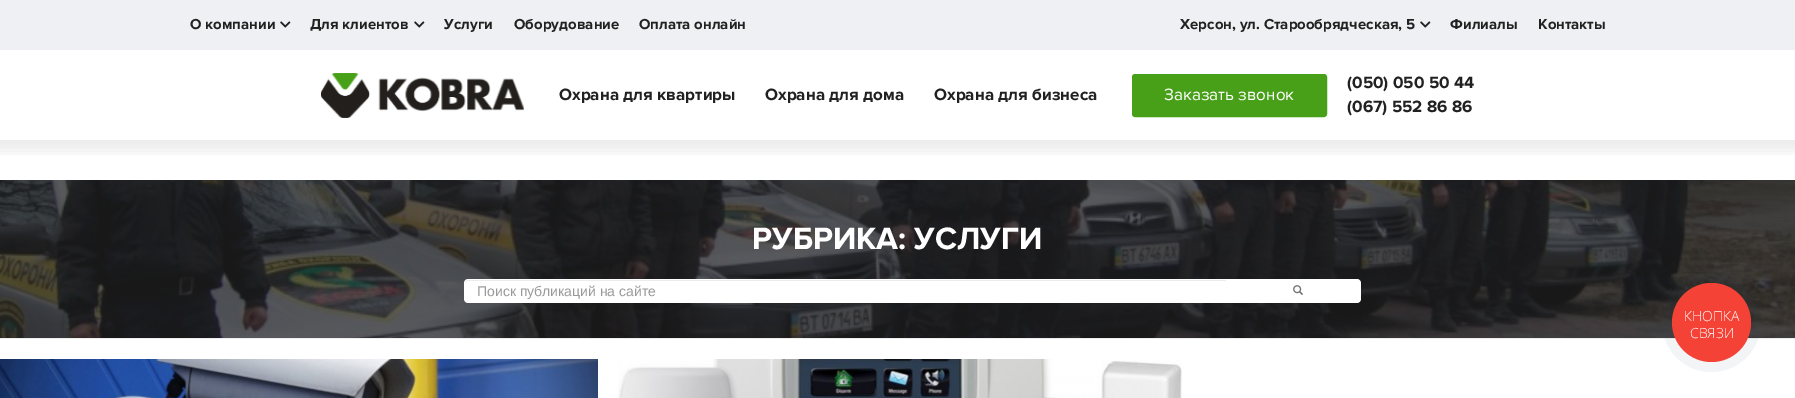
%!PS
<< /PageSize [1795 398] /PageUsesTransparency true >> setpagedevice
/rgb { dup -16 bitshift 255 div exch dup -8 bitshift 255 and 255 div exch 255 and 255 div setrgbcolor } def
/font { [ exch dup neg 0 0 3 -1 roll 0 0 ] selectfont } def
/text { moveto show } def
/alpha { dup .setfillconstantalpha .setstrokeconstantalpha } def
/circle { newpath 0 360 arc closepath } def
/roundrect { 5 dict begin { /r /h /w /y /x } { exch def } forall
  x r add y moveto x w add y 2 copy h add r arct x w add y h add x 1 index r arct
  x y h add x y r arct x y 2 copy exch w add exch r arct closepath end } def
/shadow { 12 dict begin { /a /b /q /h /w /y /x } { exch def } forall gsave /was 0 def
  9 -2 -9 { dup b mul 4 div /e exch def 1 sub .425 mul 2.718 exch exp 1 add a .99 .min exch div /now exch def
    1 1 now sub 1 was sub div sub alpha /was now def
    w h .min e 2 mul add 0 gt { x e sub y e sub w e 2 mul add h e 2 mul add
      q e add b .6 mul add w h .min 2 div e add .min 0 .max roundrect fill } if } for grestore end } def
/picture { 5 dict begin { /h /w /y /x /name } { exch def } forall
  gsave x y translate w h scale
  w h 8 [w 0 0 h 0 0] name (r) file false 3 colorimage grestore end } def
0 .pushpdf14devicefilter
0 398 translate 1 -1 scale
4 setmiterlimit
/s1 { /ProximaNova-Bold 15 font 16#212121 rgb } def
/s2 { /ProximaNova-Bold 17 font 16#212121 rgb } def
/s3 { /ProximaNova-Regular 17 font 16#FFFFFF rgb } def
/s4 { /ProximaNova-Bold 32 font 16#FFFFFF rgb } def
/s5 { /LiberationSans-Regular 14 font 16#999999 rgb } def
/s6 { /OpenSans-Light 14 font 16#FFFFFF rgb } def
16#FFFFFF rgb
0 0 1795 398 rectfill
gsave
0 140 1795 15 rectclip
16#000000 rgb
-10 -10 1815 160 0 7.5 0.08 shadow
grestore
16#EEF0F3 rgb
0 0 1795 50 rectfill
s1
(О компании) 190 29 text
(pic1.raw) 280 21 11 7 picture
(Для клиентов) 310 29 text
(pic1.raw) 414 21 11 7 picture
(Услуги) 444 29 text
(Оборудование) 514 29 text
(Оплата онлайн) 639 29 text
(Херсон, ул. Старообрядческая, 5) 1180 29 text
(pic1.raw) 1420 21 11 7 picture
(Филиалы) 1450 29 text
(Контакты) 1538 29 text
(pic2.raw) 321 73 203 45 picture
s2
(Охрана для квартиры) 559 100 text
(Охрана для дома) 765 100 text
(Охрана для бизнеса) 934 100 text
16#47A018 rgb
1133 75 193 41 2 roundrect gsave fill grestore
2 setlinewidth
stroke
s3
(Заказать звонок) 1164 100 text
s2
(\(050\) 050 50 44) 1347 88 text
(\(067\) 552 86 86) 1347 112 text
(pic3.raw) 0 180 1795 158 picture
16#EEEEEE rgb
0 338 1795 1 rectfill
s4
(РУБРИКА: УСЛУГИ) 752 249 text
468 279 moveto 1227 279 lineto 1227 303 lineto 468 303 lineto 466 303 464 301 464 299 curveto 464 283 lineto 464 281 466 279 468 279 curveto closepath fill
16#ECECEC rgb
468 281 moveto 1226 281 lineto 1226 280 lineto 468 280 lineto 466 280 465 282 465 284 curveto 465 282 466 281 468 281 curveto closepath fill
s5
(Поиск публикаций на сайте) 477 296 text
16#FFFFFF rgb
1227 279 moveto 1357 279 lineto 1359 279 1361 281 1361 283 curveto 1361 299 lineto 1361 301 1359 303 1357 303 curveto 1227 303 lineto closepath fill
(pic4.raw) 1293 285 10 10 picture
(pic5.raw) 0 359 598 39 picture
(pic6.raw) 618 359 564 39 picture
0.06 alpha
16#2A405D rgb
1711.5 322.5 49.5 circle fill
1 alpha
16#F44336 rgb
1711.5 322.5 39.5 circle fill
s6
(КНОПКА) 1684 321 text
(СВЯЗИ) 1690 338 text
.poppdf14devicefilter showpage
